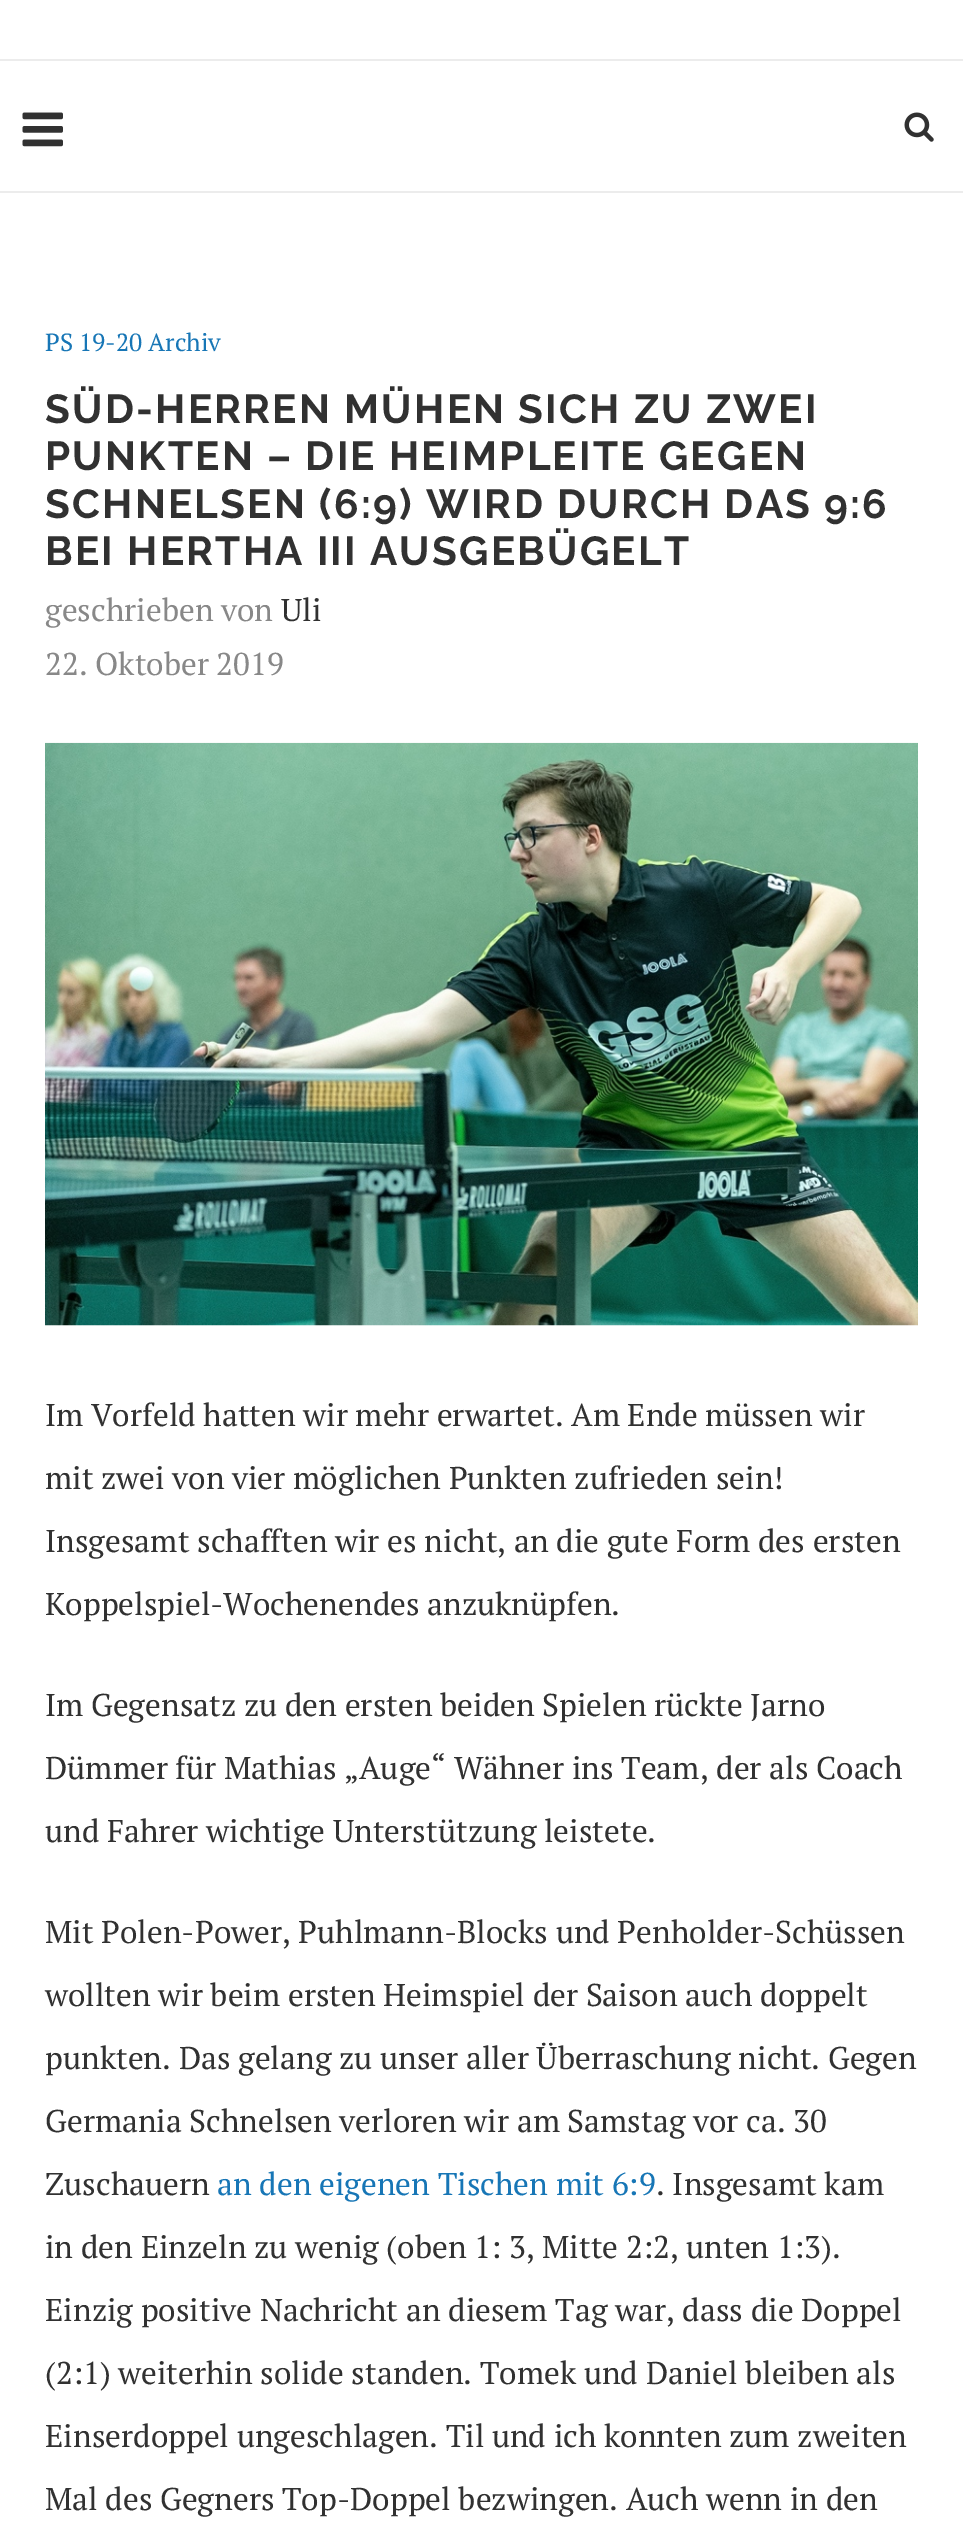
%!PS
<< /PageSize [963 2523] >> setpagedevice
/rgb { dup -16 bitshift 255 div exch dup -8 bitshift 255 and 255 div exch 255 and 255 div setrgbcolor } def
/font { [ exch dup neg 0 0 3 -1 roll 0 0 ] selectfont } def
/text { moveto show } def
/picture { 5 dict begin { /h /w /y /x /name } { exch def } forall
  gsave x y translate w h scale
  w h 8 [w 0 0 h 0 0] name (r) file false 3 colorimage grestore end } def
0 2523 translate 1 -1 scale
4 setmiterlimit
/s1 { /PTSerif-Regular 24.75 font 16#1776B6 rgb } def
/s2 { /PTSerif-Regular 31.5 font 16#888888 rgb } def
/s3 { /PTSerif-Regular 31.5 font 16#313131 rgb } def
/s4 { /PTSerif-Regular 31.5 font 16#1776B6 rgb } def
16#FFFFFF rgb
0 0 963 2523 rectfill
16#ECECEC rgb
0 59 963 2 rectfill
0 191 963 2 rectfill
(pic1.raw) 22 112 41 35 picture
(pic2.raw) 904 112 30 30 picture
s1
(PS 19-20 Archiv) 45 351 text
/Raleway-Bold 40.5 font
16#313131 rgb
45 423 moveto 2.25 0 (SÜD-HERREN MÜHEN SICH ZU ZWEI) ashow
45 470 moveto 2.25 0 (PUNKTEN – DIE HEIMPLEITE GEGEN) ashow
45 518 moveto 2.25 0 (SCHNELSEN \(6:9\) WIRD DURCH DAS 9:6) ashow
45 565 moveto 2.25 0 (BEI HERTHA III AUSGEBÜGELT) ashow
s2
(geschrieben von) 45 621 text
s3
(Uli) 281 621 text
s2
(22. Oktober 2019) 45 675 text
(pic3.raw) 45 742 873 584 picture
s3
(Im Vorfeld hatten wir mehr erwartet. Am Ende müssen wir) 45 1426 text
(mit zwei von vier möglichen Punkten zufrieden sein!) 45 1489 text
(Insgesamt schafften wir es nicht, an die gute Form des ersten) 45 1552 text
(Koppelspiel-Wochenendes anzuknüpfen.) 45 1615 text
(Im Gegensatz zu den ersten beiden Spielen rückte Jarno) 45 1716 text
(Dümmer für Mathias „Auge“ Wähner ins Team, der als Coach) 45 1779 text
(und Fahrer wichtige Unterstützung leistete.) 45 1842 text
(Mit Polen-Power, Puhlmann-Blocks und Penholder-Schüssen) 45 1943 text
(wollten wir beim ersten Heimspiel der Saison auch doppelt) 45 2006 text
(punkten. Das gelang zu unser aller Überraschung nicht. Gegen) 45 2069 text
(Germania Schnelsen verloren wir am Samstag vor ca. 30) 45 2132 text
(Zuschauern) 45 2195 text
s4
(an den eigenen Tischen mit 6:9) 217 2195 text
s3
(. Insgesamt kam) 656 2195 text
(in den Einzeln zu wenig \(oben 1: 3, Mitte 2:2, unten 1:3\).) 45 2258 text
(Einzig positive Nachricht an diesem Tag war, dass die Doppel) 45 2321 text
(\(2:1\) weiterhin solide standen. Tomek und Daniel bleiben als) 45 2384 text
(Einserdoppel ungeschlagen. Til und ich konnten zum zweiten) 45 2447 text
(Mal des Gegners Top-Doppel bezwingen. Auch wenn in den) 45 2510 text
showpage
